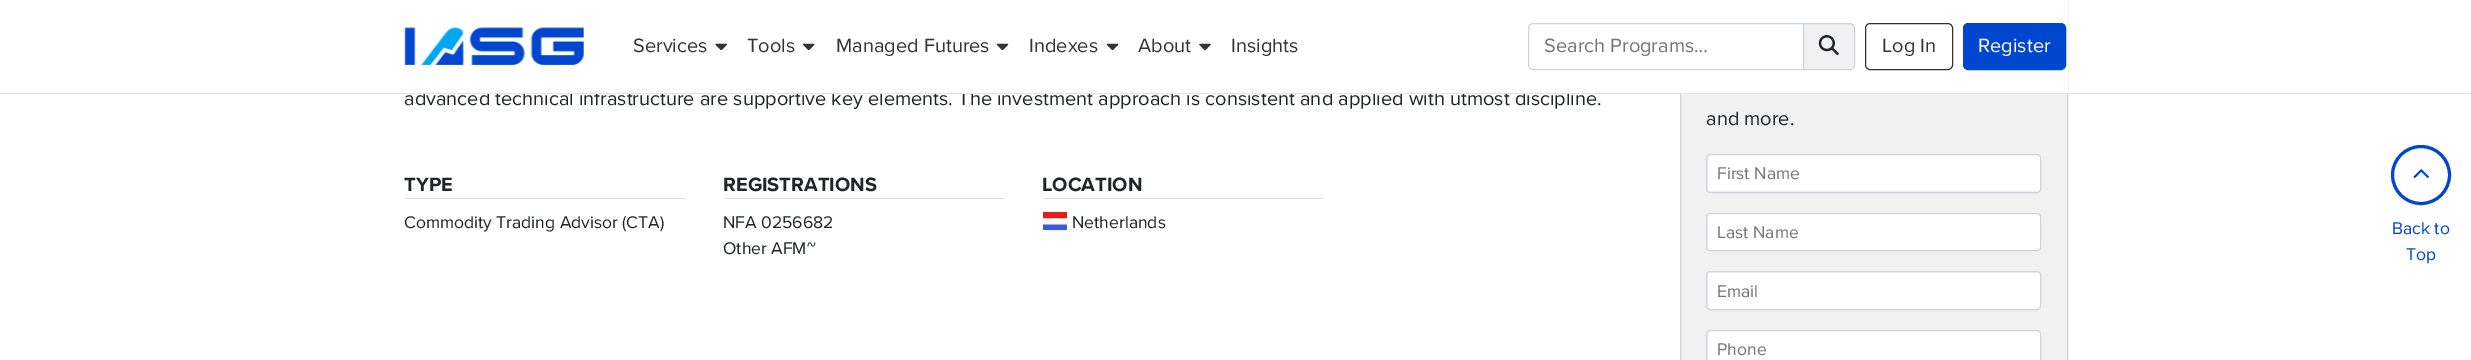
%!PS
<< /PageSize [2471 360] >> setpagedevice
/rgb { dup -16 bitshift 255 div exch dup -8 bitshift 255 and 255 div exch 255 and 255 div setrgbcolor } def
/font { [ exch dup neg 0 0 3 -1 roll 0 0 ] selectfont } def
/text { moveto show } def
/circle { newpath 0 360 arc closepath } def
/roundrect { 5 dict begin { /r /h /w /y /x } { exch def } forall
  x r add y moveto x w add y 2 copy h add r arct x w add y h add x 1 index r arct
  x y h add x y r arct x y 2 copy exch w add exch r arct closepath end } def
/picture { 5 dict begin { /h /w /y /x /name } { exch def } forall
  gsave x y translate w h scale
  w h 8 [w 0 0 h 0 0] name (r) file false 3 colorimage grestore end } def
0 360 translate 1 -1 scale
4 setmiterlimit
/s1 { /ProximaNova-Regular 20 font 16#212529 rgb } def
/s2 { /ProximaNova-Regular 20 font 16#333333 rgb } def
/s3 { /ProximaNova-Regular 20 font 16#757575 rgb } def
/s4 { /ProximaNova-Regular 20 font 16#FFFFFF rgb } def
/s5 { /ProximaNova-Bold 20 font 16#212529 rgb } def
/s6 { /ProximaNova-Regular 17.5 font 16#212529 rgb } def
/s7 { /ProximaNova-Regular 17.5 font 16#757575 rgb } def
/s8 { /ProximaNova-Regular 17.5 font 16#0046CF rgb } def
16#FFFFFF rgb
0 0 2471 360 rectfill
s1
(advanced technical infrastructure are supportive key elements. The investment approach is consistent and applied with utmost discipline.) 404 105 text
16#F1F1F1 rgb
1681 94 386 266 rectfill
16#D3D3D3 rgb
1680.5 -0.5 387 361 rectstroke
16#FFFFFF rgb
423 0 1645 93 rectfill
16#DEE2E6 rgb
0 93 2471 1 rectfill
(pic1.raw) 404 27 180 38 picture
s2
(Services) 633 52 text
(pic2.raw) 715 43 12 7 picture
(Tools) 747 52 text
(pic3.raw) 803 43 12 7 picture
(Managed Futures) 836 52 text
(pic4.raw) 996 43 13 7 picture
(Indexes) 1029 52 text
(pic4.raw) 1106 43 13 7 picture
(About) 1138 52 text
(pic5.raw) 1199 43 12 7 picture
(Insights) 1231 52 text
16#CED4DA rgb
1533 23.5 moveto 1803.5 23.5 lineto 1803.5 69.5 lineto 1533 69.5 lineto 1530.5 69.5 1528.5 67.5 1528.5 65 curveto 1528.5 28 lineto 1528.5 25.5 1530.5 23.5 1533 23.5 curveto closepath stroke
s3
(Search Programs…) 1544 52 text
16#F1F1F1 rgb
1803.5 23.5 moveto 1850 23.5 lineto 1852.5 23.5 1854.5 25.5 1854.5 28 curveto 1854.5 65 lineto 1854.5 67.5 1852.5 69.5 1850 69.5 curveto 1803.5 69.5 lineto closepath gsave fill grestore
16#CED4DA rgb
stroke
(pic6.raw) 1818 35 21 20 picture
16#333333 rgb
1865.5 23.5 87 46 4.5 roundrect stroke
(Log In) 1882 52 text
16#0046CF rgb
1963.5 23.5 102 46 4.5 roundrect gsave fill grestore
stroke
s4
(Register) 1978 52 text
16#DEE2E6 rgb
405 198 281 1 rectfill
s5
(TYPE) 404 191 text
s6
(Commodity Trading Advisor \(CTA\)) 404 228 text
16#DEE2E6 rgb
724 198 281 1 rectfill
s5
(REGISTRATIONS) 723 191 text
s6
(NFA 0256682) 723 228 text
(Other AFM~) 723 254 text
16#DEE2E6 rgb
1043 198 281 1 rectfill
s5
(LOCATION) 1042 191 text
(pic7.raw) 1043 212 24 19 picture
s6
(Netherlands) 1072 228 text
s1
(and more.) 1706 125 text
16#FFFFFF rgb
1708 155 332 36 2.5 roundrect fill
16#CED4DA rgb
1706.5 154.5 334 38 3.5 roundrect stroke
s7
(First Name) 1717 179 text
16#FFFFFF rgb
1708 214 332 36 2.5 roundrect fill
16#CED4DA rgb
1706.5 213.5 334 37 3.5 roundrect stroke
s7
(Last Name) 1717 238 text
16#FFFFFF rgb
1708 273 332 36 2.5 roundrect fill
16#CED4DA rgb
1706.5 271.5 334 38 3.5 roundrect stroke
s7
(Email) 1717 297 text
16#FFFFFF rgb
1708 331 332 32 2.5 roundrect fill
16#CED4DA rgb
1706.5 330.5 334 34 3.5 roundrect stroke
s7
(Phone) 1717 355 text
16#0046CF rgb
3 setlinewidth
2421 175 28.5 circle stroke
(pic8.raw) 2413 169 16 9 picture
(Back to) 2392 234 text
(Top) 2406 260 text
showpage
